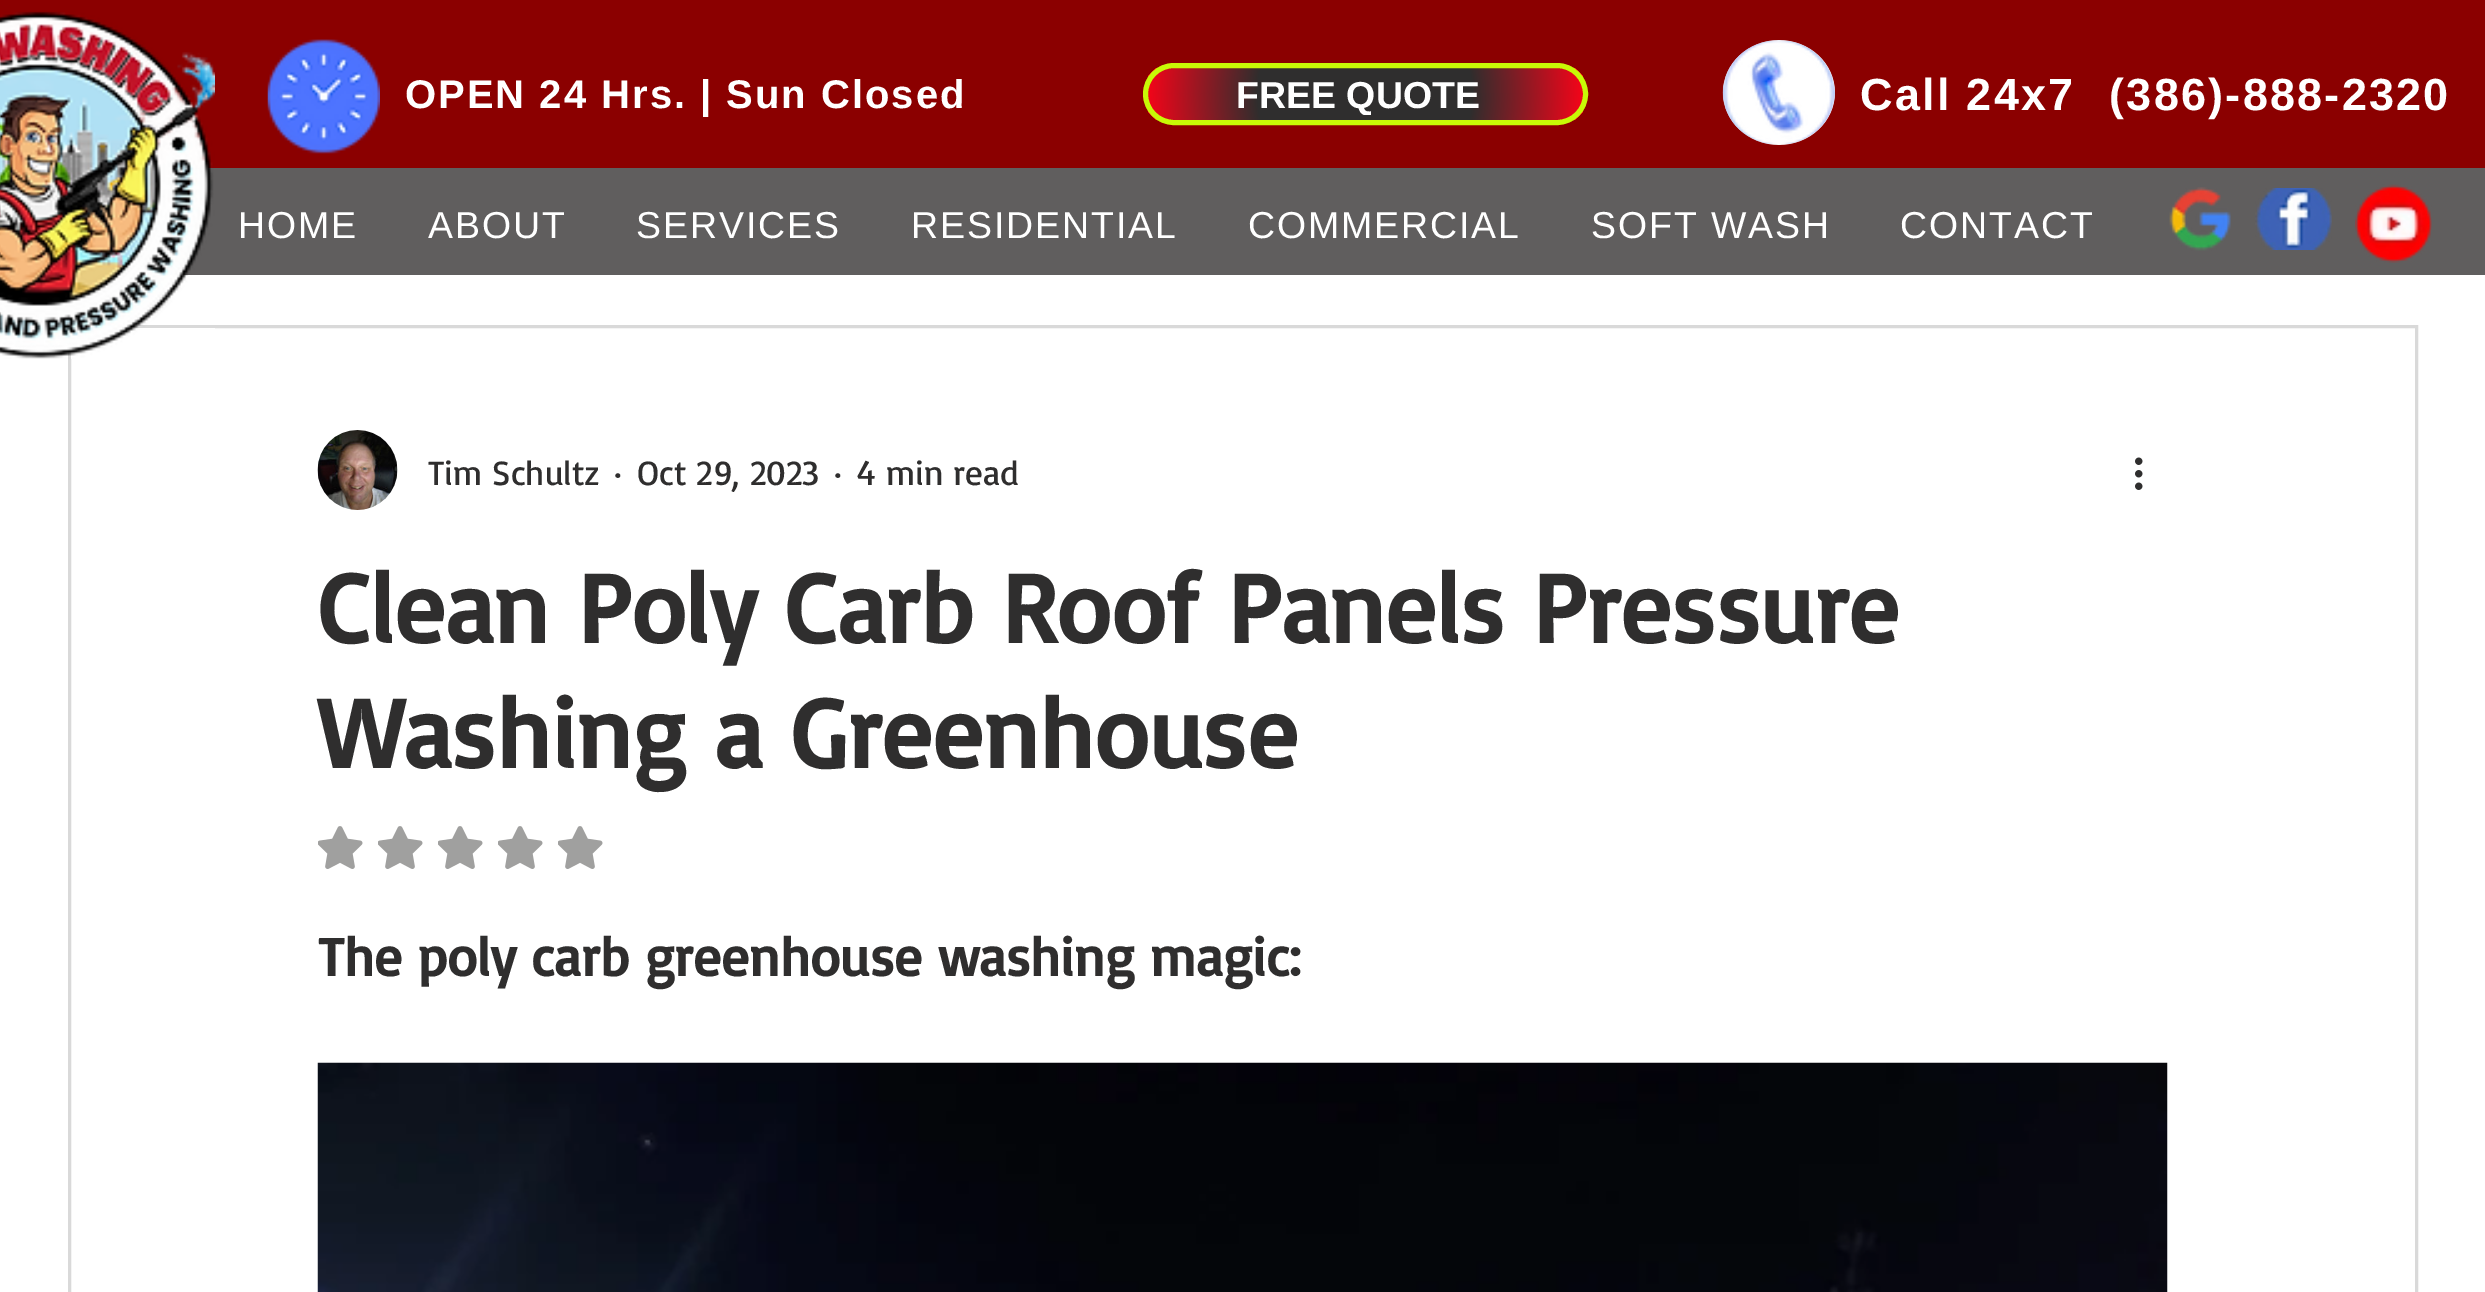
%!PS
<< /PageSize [2485 1292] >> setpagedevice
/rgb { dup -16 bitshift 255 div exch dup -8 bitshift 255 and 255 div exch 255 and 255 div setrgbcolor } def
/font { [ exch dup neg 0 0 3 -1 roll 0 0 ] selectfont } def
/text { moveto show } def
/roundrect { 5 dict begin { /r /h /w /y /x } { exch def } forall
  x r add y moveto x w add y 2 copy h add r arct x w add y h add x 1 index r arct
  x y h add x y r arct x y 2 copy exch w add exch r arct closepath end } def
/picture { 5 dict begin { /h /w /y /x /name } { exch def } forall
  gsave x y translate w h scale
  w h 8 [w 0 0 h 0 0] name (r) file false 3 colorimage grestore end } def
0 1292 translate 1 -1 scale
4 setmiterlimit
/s1 { /LiberationSans-Bold 37.5 font 16#FFFFFF rgb } def
/s2 { /Basic-Regular 35 font 16#2F2E2E rgb } def
/s3 { /Basic-Bold 100 font 16#2F2E2E rgb } def
/s4 { /Basic-Bold 55 font 16#2F2E2E rgb } def
16#FFFFFF rgb
0 0 2485 1292 rectfill
16#8B0000 rgb
0 0 2485 168 rectfill
16#605E5E rgb
179 168 2306 107 rectfill
16#D9D9D9 rgb
3 setlinewidth
69.5 326.5 2347 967 rectstroke
(pic1.raw) 0 11 215 348 picture
(pic2.raw) 267 39 113 115 picture
/LiberationSans-Bold 40 font
16#FFFFFF rgb
405 108 moveto 2 0 (OPEN 24 Hrs. | Sun Closed) ashow
gsave
1143 63 445 62 31 roundrect clip newpath
gsave 1148 68 moveto 1583 68 lineto 1583 120 lineto 1148 120 lineto closepath clip newpath 1365 94 translate 219 219 scale
<< /ShadingType 3 /ColorSpace /DeviceRGB /Coords [0 0 0 0 0 1] /Extend [true true] /Function << /FunctionType 3 /Domain [0 1] /Functions [<< /FunctionType 2 /Domain [0 1] /C0 [0.184 0.18 0.18] /C1 [0.184 0.18 0.18] /N 1 >> << /FunctionType 2 /Domain [0 1] /C0 [0.184 0.18 0.18] /C1 [0.965 0.016 0.098] /N 1 >>] /Bounds [0.49] /Encode [0 1 0 1] >> >> shfill grestore
grestore
16#C8F906 rgb
5 setlinewidth
1145.5 65.5 440 57 28.5 roundrect stroke
gsave
1235 73 245 42 rectclip
s1
(FREE QUOTE) 1236 108 text
grestore
16#FFFFFF rgb
1779 40 moveto 1810 40 1835 63.5 1835 92.5 curveto 1835 121.5 1810 145 1779 145 curveto 1748 145 1723 121.5 1723 92.5 curveto 1723 63.5 1748 40 1779 40 curveto closepath fill
(pic3.raw) 1722 40 113 105 picture
/LiberationSans-Bold 45 font
1860 110 moveto 2.25 0 (Call 24x7) ashow
2109 110 moveto 2.25 0 (\(386\)-888-2320) ashow
/LiberationSans-Regular 37.5 font
238 238 moveto 1.9 0 (HOME) ashow
428 238 moveto 1.9 0 (ABOUT) ashow
636 238 moveto 1.9 0 (SERVICES) ashow
911 238 moveto 1.9 0 (RESIDENTIAL) ashow
1248 238 moveto 1.9 0 (COMMERCIAL) ashow
1591 238 moveto 1.9 0 (SOFT WASH) ashow
1900 238 moveto 1.9 0 (CONTACT) ashow
(pic4.raw) 2169 187 62 64 picture
(pic5.raw) 2255 188 77 62 picture
(pic6.raw) 2355 184 77 79 picture
(pic7.raw) 317 430 81 80 picture
s2
(Tim Schultz) 428 485 text
(·) 614 485 text
(Oct 29, 2023) 637 485 text
(·) 834 485 text
(4 min read) 857 485 text
(pic8.raw) 2135 457 8 33 picture
s3
(Clean Poly Carb Roof Panels Pressure) 318 643 text
(Washing a Greenhouse) 318 768 text
(pic9.raw) 318 826 45 43 picture
(pic9.raw) 378 826 45 43 picture
(pic9.raw) 438 826 45 43 picture
(pic9.raw) 498 826 45 43 picture
(pic9.raw) 558 826 45 43 picture
s4
(The poly carb greenhouse washing magic:) 318 976 text
(pic10.raw) 317 1062 1851 230 picture
showpage
